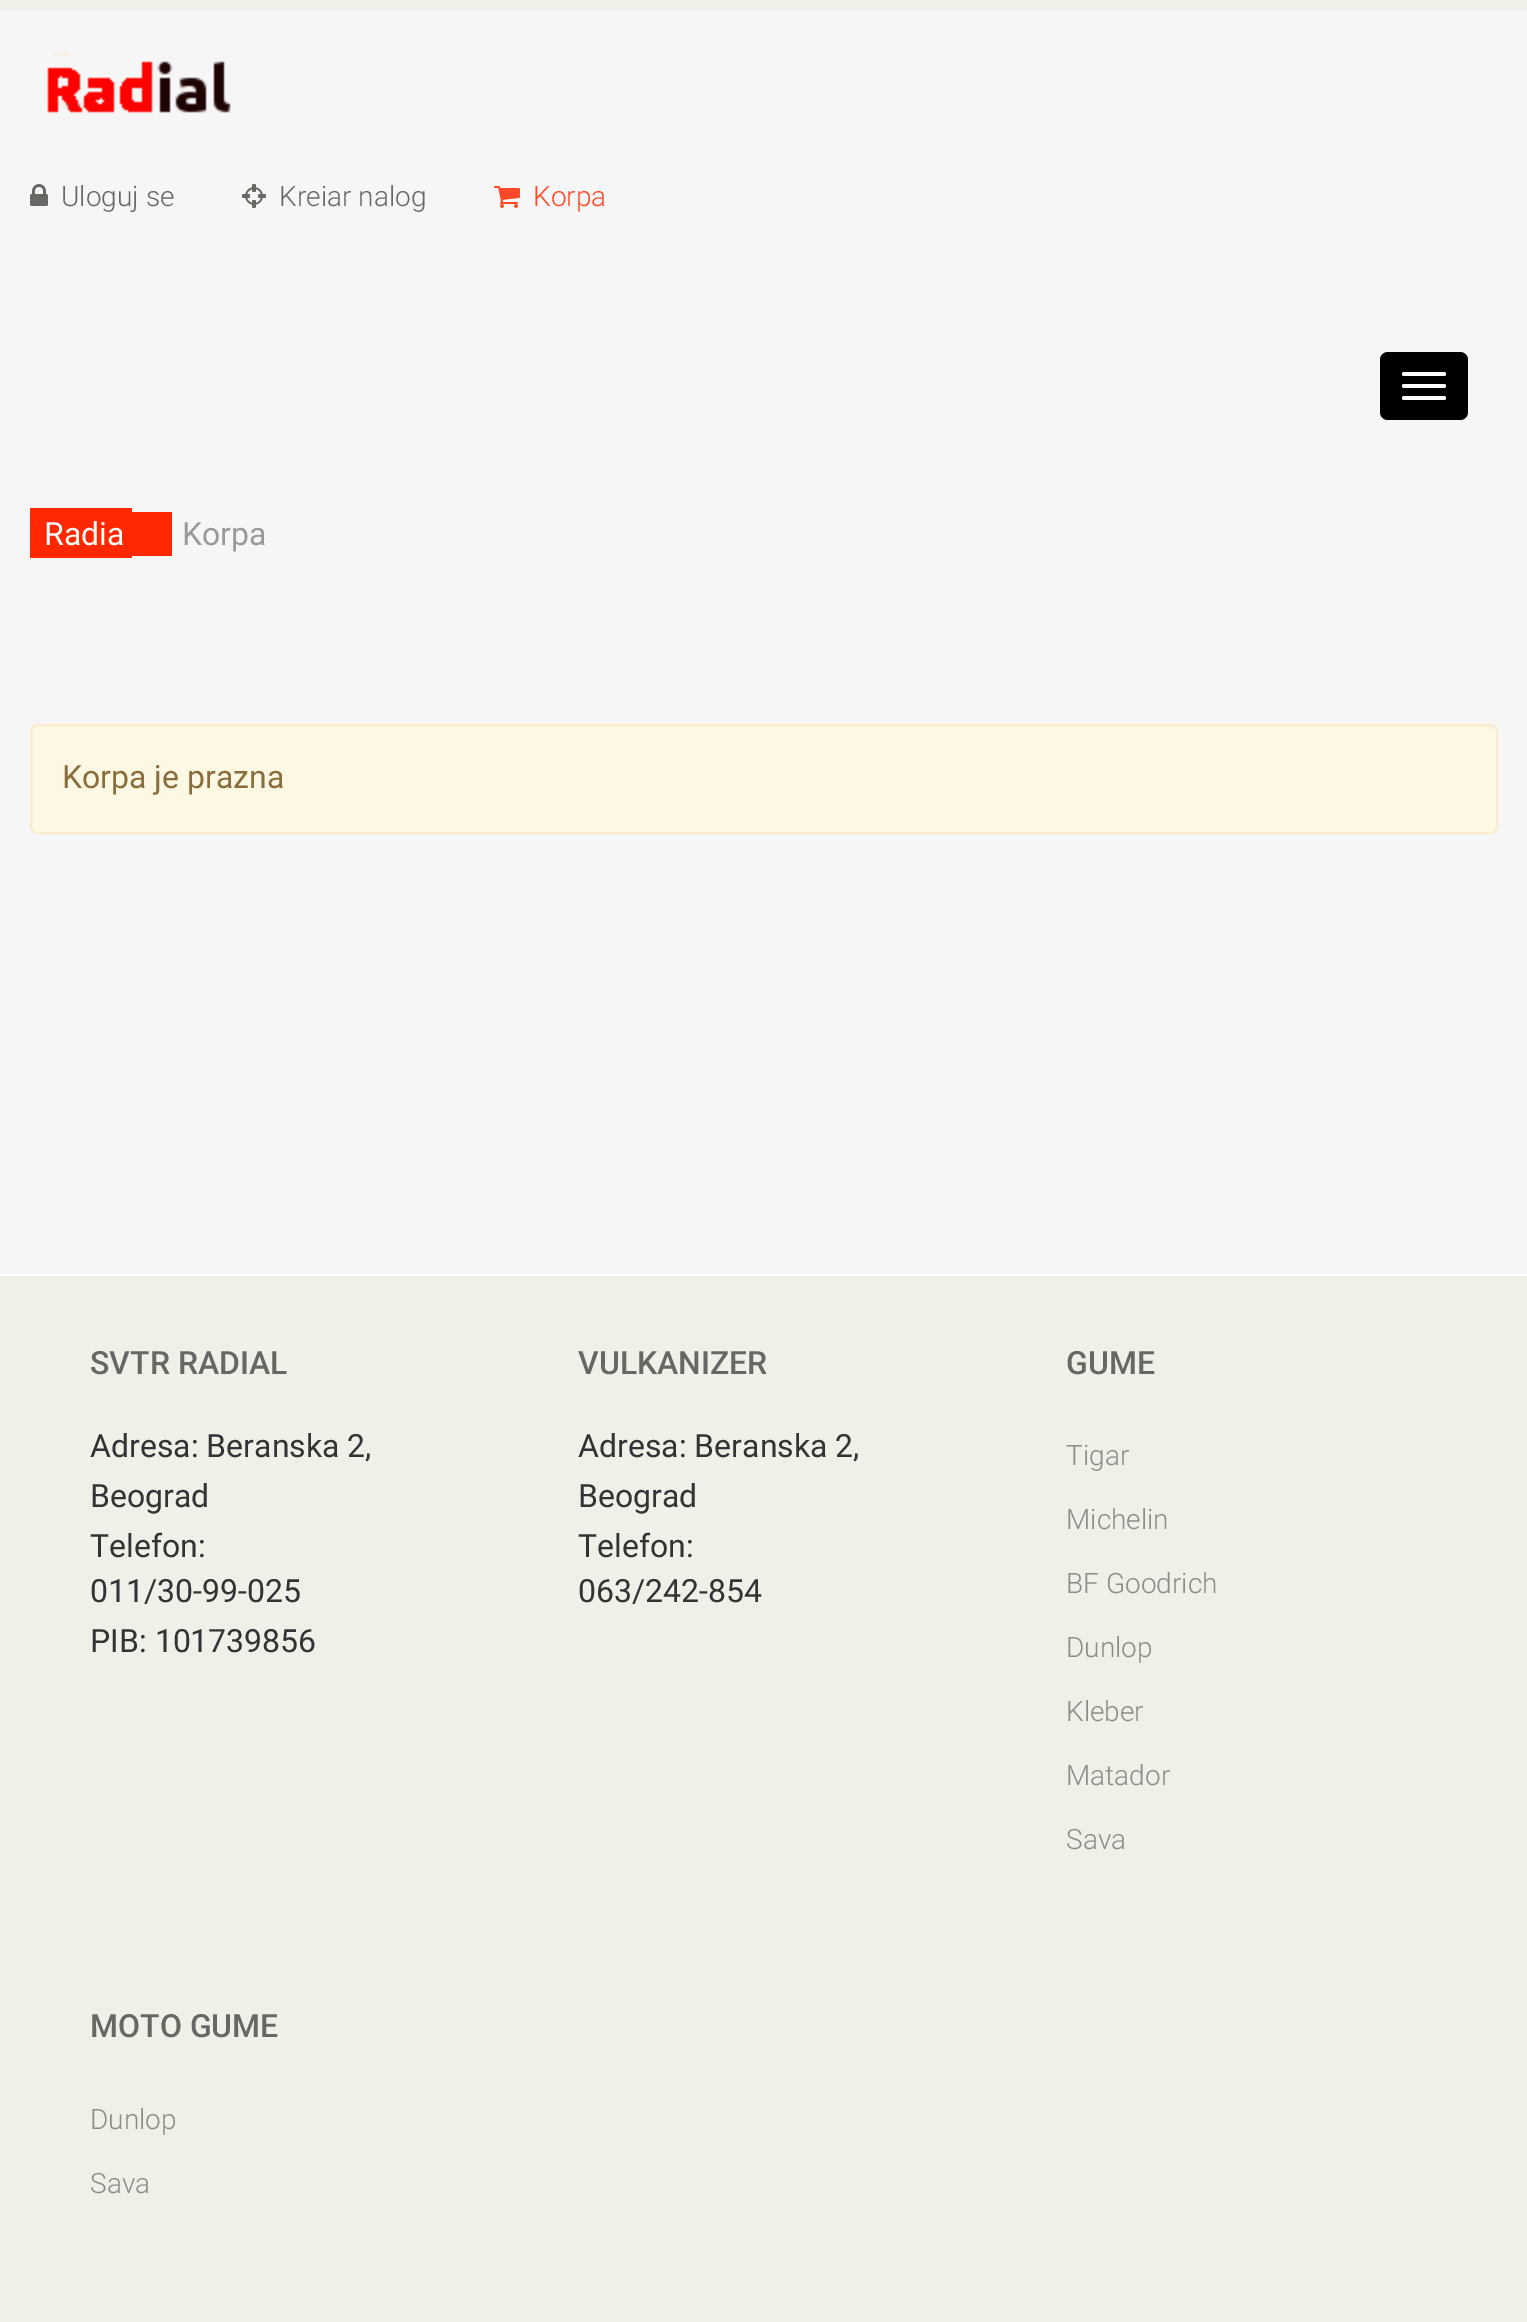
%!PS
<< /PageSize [1527 2322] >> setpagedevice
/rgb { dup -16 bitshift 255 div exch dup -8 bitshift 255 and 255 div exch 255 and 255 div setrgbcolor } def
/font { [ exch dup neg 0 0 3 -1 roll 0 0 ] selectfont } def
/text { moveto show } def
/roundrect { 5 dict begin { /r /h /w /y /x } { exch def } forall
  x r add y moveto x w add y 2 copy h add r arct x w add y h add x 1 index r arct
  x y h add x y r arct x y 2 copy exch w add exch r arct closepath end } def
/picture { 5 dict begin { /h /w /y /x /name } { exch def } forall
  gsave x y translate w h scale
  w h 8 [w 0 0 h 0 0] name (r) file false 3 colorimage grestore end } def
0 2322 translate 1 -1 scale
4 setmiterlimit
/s1 { /Roboto-Light 28 font 16#696763 rgb } def
/s2 { /Roboto-Light 28 font 16#FF4826 rgb } def
/s3 { /Roboto-Regular 32 font 16#FFFFFF rgb } def
/s4 { /Roboto-Regular 32 font 16#999999 rgb } def
/s5 { /Roboto-Regular 32 font 16#8A6D3B rgb } def
/s6 { /Roboto-Medium 32 font 16#696763 rgb } def
/s7 { /Roboto-Regular 32 font 16#333333 rgb } def
/s8 { /Roboto-Light 28 font 16#8C8C88 rgb } def
16#F6F6F6 rgb
0 0 1527 2322 rectfill
16#F0F0E9 rgb
0 0 1527 10 rectfill
(pic1.raw) 47 51 184 62 picture
(pic2.raw) 30 184 18 22 picture
s1
(Uloguj se) 61 206 text
(pic3.raw) 242 184 24 24 picture
(Kreiar nalog) 279 206 text
(pic4.raw) 494 186 26 22 picture
s2
(Korpa) 533 206 text
16#000000 rgb
1380 352 88 68 8 roundrect fill
16#FFFFFF rgb
1402 372 44 4 2 roundrect fill
1402 384 44 4 2 roundrect fill
1402 396 44 4 2 roundrect fill
16#FF2800 rgb
30 508 102 50 rectfill
s3
(Radia) 44 545 text
16#FF2800 rgb
132 512 40 44 rectfill
s4
(Korpa) 182 545 text
16#FCF8E3 rgb
31 725 1466 108 7 roundrect gsave fill grestore
16#FAEBCC rgb
2 setlinewidth
stroke
s5
(Korpa je prazna) 62 788 text
16#F0F0E9 rgb
0 1276 1527 1046 rectfill
16#FFFFFF rgb
0 1274 1527 2 rectfill
s6
(SVTR RADIAL) 90 1374 text
s7
(Adresa: Beranska 2,) 90 1457 text
(Beograd) 90 1507 text
(Telefon:) 90 1557 text
(011/30-99-025) 90 1602 text
(PIB: 101739856) 90 1652 text
s6
(VULKANIZER) 578 1374 text
s7
(Adresa: Beranska 2,) 578 1457 text
(Beograd) 578 1507 text
(Telefon:) 578 1557 text
(063/242-854) 578 1602 text
s6
(GUME) 1066 1374 text
s8
(Tigar) 1066 1465 text
(Michelin) 1066 1529 text
(BF Goodrich) 1066 1593 text
(Dunlop) 1066 1657 text
(Kleber) 1066 1721 text
(Matador) 1066 1785 text
(Sava) 1066 1849 text
s6
(MOTO GUME) 90 2037 text
s8
(Dunlop) 90 2129 text
(Sava) 90 2193 text
showpage
